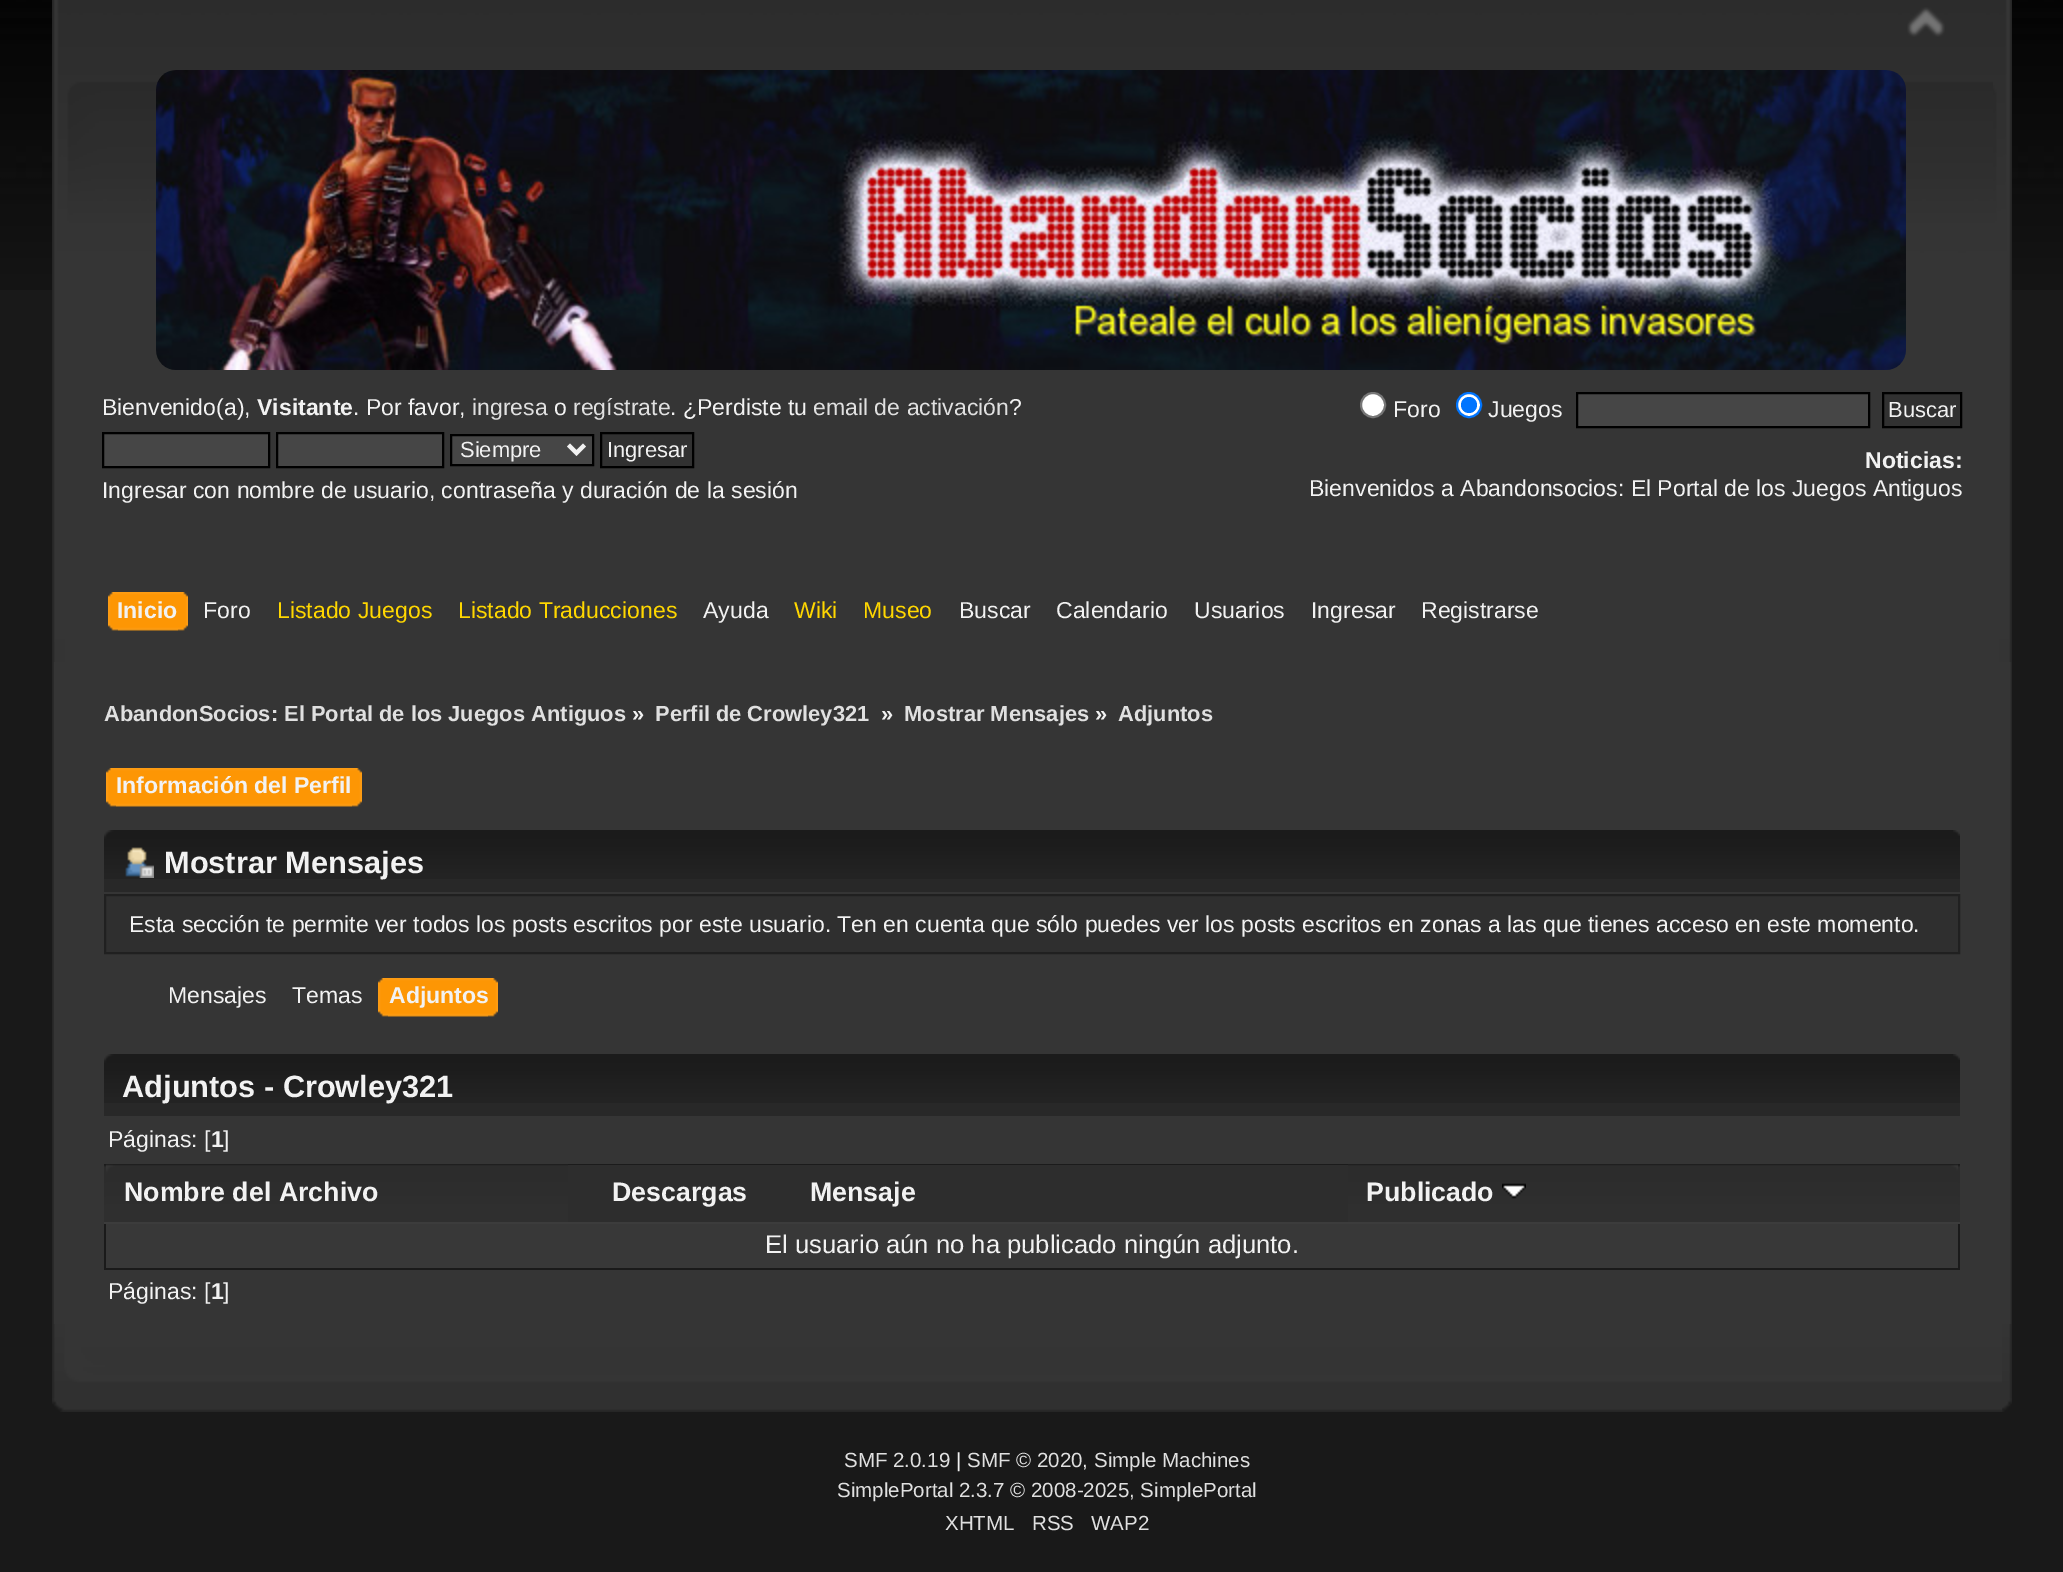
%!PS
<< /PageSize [2063 1572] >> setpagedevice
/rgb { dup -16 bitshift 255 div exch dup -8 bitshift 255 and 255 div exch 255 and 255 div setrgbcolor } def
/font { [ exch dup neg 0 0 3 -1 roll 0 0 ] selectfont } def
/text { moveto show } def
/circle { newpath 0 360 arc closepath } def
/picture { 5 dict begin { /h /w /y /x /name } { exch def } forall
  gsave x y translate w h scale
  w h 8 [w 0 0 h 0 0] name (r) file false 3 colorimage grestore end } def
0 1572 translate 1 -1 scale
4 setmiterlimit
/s1 { /LiberationSans-Regular 23.05 font 16#F2F2F2 rgb } def
/s2 { /LiberationSans-Bold 23.05 font 16#F2F2F2 rgb } def
/s3 { /LiberationSans-Regular 23.05 font 16#E0E0E0 rgb } def
/s4 { /LiberationSans-Regular 21.9 font 16#F2F2F2 rgb } def
/s5 { /LiberationSans-Regular 23.05 font 16#FFD700 rgb } def
/s6 { /LiberationSans-Bold 21.9 font 16#E0E0E0 rgb } def
/s7 { /LiberationSans-Bold 21.9 font 16#F2F2F2 rgb } def
/s8 { /LiberationSans-Bold 30.75 font 16#F2F2F2 rgb } def
/s9 { /LiberationSans-Bold 26.75 font 16#F2F2F2 rgb } def
/s10 { /LiberationSans-Regular 25.6 font 16#F2F2F2 rgb } def
/s11 { /LiberationSans-Regular 20.5 font 16#E0E0E0 rgb } def
/s12 { /LiberationSans-Regular 20.5 font 16#F2F2F2 rgb } def
16#191919 rgb
0 0 2063 1572 rectfill
(pic1.raw) 0 0 2063 290 picture
(pic2.raw) 52 0 1941 662 picture
(pic3.raw) 1993 0 19 662 picture
(pic4.raw) 1907 7 38 30 picture
(pic5.raw) 156 70 1750 300 picture
s1
(Bienvenido\(a\),) 102 415 text
s2
(Visitante) 257 415 text
s1
(. Por favor,) 353 415 text
s3
(ingresa) 472 415 text
s1
(o) 554 415 text
s3
(regístrate) 573 415 text
s1
(. ¿Perdiste tu) 670 415 text
s3
(email de activación) 813 415 text
s1
(?) 1009 415 text
16#464646 rgb
103 433 moveto 269 433 lineto 269 467 lineto 103 467 lineto closepath gsave fill grestore
16#000000 rgb
2 setlinewidth
stroke
16#464646 rgb
277 433 moveto 443 433 lineto 443 467 lineto 277 467 lineto closepath gsave fill grestore
16#000000 rgb
stroke
16#464646 rgb
451 435 moveto 593 435 lineto 593 465 lineto 451 465 lineto closepath gsave fill grestore
16#000000 rgb
stroke
16#F2F2F2 rgb
4 setlinewidth
568.5 445 moveto 576.5 453 lineto 584.5 445 lineto stroke
s4
(Siempre) 460 457 text
16#313131 rgb
601 433 moveto 693 433 lineto 693 467 lineto 601 467 lineto closepath gsave fill grestore
16#000000 rgb
2 setlinewidth
stroke
s4
(Ingresar) 607 457 text
s1
(Ingresar con nombre de usuario, contraseña y duración de la sesión) 102 498 text
16#FFFFFF rgb
1373 405 12 circle gsave fill grestore
16#767676 rgb
stroke
s1
(Foro) 1393 417 text
16#FFFFFF rgb
1469 405 12 circle gsave fill grestore
16#0075FF rgb
stroke
1469 405 8 circle fill
s1
(Juegos) 1488 417 text
16#464646 rgb
1577 393 moveto 1869 393 lineto 1869 427 lineto 1577 427 lineto closepath gsave fill grestore
16#000000 rgb
stroke
16#313131 rgb
1883 393 moveto 1961 393 lineto 1961 427 lineto 1883 427 lineto closepath gsave fill grestore
16#000000 rgb
stroke
s4
(Buscar) 1888 417 text
s2
(Noticias:) 1865 468 text
s1
(Bienvenidos a Abandonsocios: El Portal de los Juegos Antiguos) 1309 496 text
(pic6.raw) 118 592 70 39 picture
(pic7.raw) 108 592 70 39 picture
s2
(Inicio) 117 618 text
s1
(Foro) 203 618 text
s5
(Listado Juegos) 277 618 text
(Listado Traducciones) 458 618 text
s1
(Ayuda) 703 618 text
s5
(Wiki) 794 618 text
(Museo) 863 618 text
s1
(Buscar) 959 618 text
(Calendario) 1056 618 text
(Usuarios) 1194 618 text
(Ingresar) 1311 618 text
(Registrarse) 1421 618 text
16#353535 rgb
54 662 1956 662 rectfill
(pic8.raw) 52 662 2 662 picture
(pic9.raw) 2010 662 2 662 picture
s6
(AbandonSocios: El Portal de los Juegos Antiguos) 104 721 text
s7
(») 632 721 text
s6
(Perfil de Crowley321) 655 721 text
s7
(») 881 721 text
s6
(Mostrar Mensajes) 904 721 text
s7
(») 1095 721 text
s6
(Adjuntos) 1118 721 text
(pic10.raw) 116 768 246 39 picture
(pic11.raw) 106 768 246 39 picture
s2
(Información del Perfil) 116 793 text
16#282828 rgb
104 879 1856 13 rectfill
(pic12.raw) 104 830 1856 49 picture
(pic13.raw) 1953 830 7 6 picture
(pic14.raw) 125 847 29 31 picture
s8
(Mostrar Mensajes) 164 873 text
16#2F2F2F rgb
105 895 moveto 1959 895 lineto 1959 953 lineto 105 953 lineto closepath gsave fill grestore
16#202020 rgb
stroke
s1
(Esta sección te permite ver todos los posts escritos por este usuario. Ten en cuenta que sólo puedes ver los posts escritos en zonas a las que tienes acceso en este momento.) 129 932 text
(Mensajes) 168 1003 text
(Temas) 292 1003 text
(pic15.raw) 388 978 110 39 picture
(pic16.raw) 378 978 110 39 picture
s2
(Adjuntos) 389 1003 text
16#282828 rgb
104 1103 1856 13 rectfill
(pic12.raw) 104 1054 1856 49 picture
(pic13.raw) 1953 1054 7 6 picture
s8
(Adjuntos - Crowley321) 122 1097 text
s1
(Páginas: [) 108 1147 text
s2
(1) 211 1147 text
s1
(]) 223 1147 text
16#1B1B1B rgb
568 1164 780 1 rectfill
(pic17.raw) 104 1164 464 58 picture
s9
(Nombre del Archivo) 124 1201 text
16#2D2D2D rgb
568 1165 780 57 rectfill
s9
(Descargas) 612 1201 text
(Mensaje) 810 1201 text
(pic18.raw) 1348 1164 612 58 picture
16#1A1A1A rgb
1958 1222 2 48 rectfill
104 1268 1856 2 rectfill
104 1222 2 48 rectfill
16#3C3C3C rgb
104 1222 1856 2 rectfill
s9
(Publicado) 1366 1201 text
(pic19.raw) 1502 1183 24 16 picture
16#383838 rgb
106 1224 1852 44 rectfill
s10
(El usuario aún no ha publicado ningún adjunto.) 765 1253 text
s1
(Páginas: [) 108 1299 text
s2
(1) 211 1299 text
s1
(]) 223 1299 text
(pic20.raw) 52 1324 1950 88 picture
(pic21.raw) 2002 1324 10 88 picture
s11
(SMF 2.0.19) 844 1467 text
s12
(|) 956 1467 text
s11
(SMF © 2020) 967 1467 text
s12
(,) 1082 1467 text
s11
(Simple Machines) 1094 1467 text
(SimplePortal 2.3.7 © 2008-2025, SimplePortal) 837 1497 text
(XHTML) 945 1530 text
(RSS) 1032 1530 text
(WAP2) 1091 1530 text
showpage
